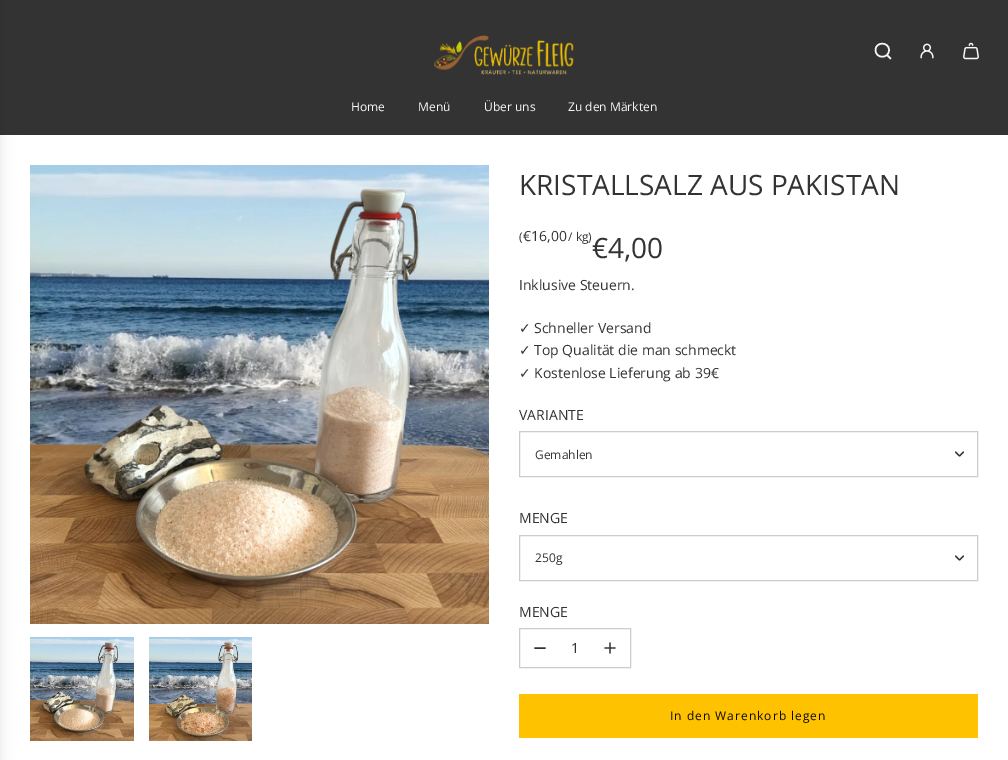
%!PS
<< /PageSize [1008 760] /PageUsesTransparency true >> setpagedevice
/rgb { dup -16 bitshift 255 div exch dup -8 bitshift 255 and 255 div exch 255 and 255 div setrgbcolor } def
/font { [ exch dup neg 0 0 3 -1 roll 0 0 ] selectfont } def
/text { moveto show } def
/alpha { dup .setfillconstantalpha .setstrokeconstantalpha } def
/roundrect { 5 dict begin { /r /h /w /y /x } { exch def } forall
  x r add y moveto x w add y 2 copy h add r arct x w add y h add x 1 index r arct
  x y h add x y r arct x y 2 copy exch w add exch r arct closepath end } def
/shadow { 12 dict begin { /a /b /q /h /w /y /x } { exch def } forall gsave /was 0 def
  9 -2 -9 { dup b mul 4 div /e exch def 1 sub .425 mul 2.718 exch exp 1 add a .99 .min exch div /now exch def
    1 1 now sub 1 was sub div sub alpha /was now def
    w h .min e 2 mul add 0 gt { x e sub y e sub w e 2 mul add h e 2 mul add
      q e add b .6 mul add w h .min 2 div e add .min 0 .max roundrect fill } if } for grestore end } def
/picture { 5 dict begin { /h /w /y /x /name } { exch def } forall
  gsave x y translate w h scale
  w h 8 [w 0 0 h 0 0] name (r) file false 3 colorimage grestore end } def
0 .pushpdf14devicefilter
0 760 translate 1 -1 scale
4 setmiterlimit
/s1 { /OpenSans-Regular 12 font 16#F8F8F8 rgb } def
/s2 { /OpenSans-Regular 28 font 16#333333 rgb } def
/s3 { /OpenSans-Regular 12 font 16#333333 rgb } def
/s4 { /OpenSans-Regular 14 font 16#333333 rgb } def
/s5 { /DejaVuSans-Regular 14 font 16#333333 rgb } def
16#FFFFFF rgb
0 0 1008 760 rectfill
16#333333 rgb
0 0 1008 135 rectfill
16#000000 rgb
-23 5 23 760 0 7.5 0.1 shadow
(pic1.raw) 434 35 140 40 picture
16#F8F8F8 rgb
1.5 setlinewidth
1 setlinecap
1 setlinejoin
887 55 moveto 890.5 58.5 lineto 875.5 50 moveto 875.5 59 889 59 889 50 curveto 889 41.5 875.5 41.5 875.5 50 curveto closepath stroke
(pic2.raw) 920 43 14 16 picture
(pic3.raw) 963 42 16 18 picture
s1
(Home) 351 111 text
(Menü) 418 111 text
(Über uns) 484 111 text
(Zu den Märkten) 568 111 text
(pic4.raw) 30 165 459 459 picture
(pic5.raw) 30 637 104 104 picture
(pic6.raw) 149 637 103 104 picture
s2
(KRISTALLSALZ AUS PAKISTAN) 519 195 text
s3
(\() 519 241 text
s4
(€16,00) 523 241 text
s3
(/ kg\)) 568 241 text
s2
(€4,00) 592 258 text
s4
(Inklusive Steuern.) 519 290 text
s5
(✓) 519 333 text
s4
(Schneller Versand) 534 333 text
s5
(✓) 519 355 text
s4
(Top Qualität die man schmeckt) 534 355 text
s5
(✓) 519 378 text
s4
(Kostenlose Lieferung ab 39€) 534 378 text
(VARIANTE) 519 420 text
16#CCCCCC rgb
1 setlinewidth
0 setlinecap
0 setlinejoin
519.5 431.5 458 45 rectstroke
s3
(Gemahlen) 535 459 text
1.2 setlinewidth
1 setlinecap
1 setlinejoin
955.5 452 moveto 959.5 456 lineto 963.5 452 lineto stroke
s4
(MENGE) 519 523 text
16#CCCCCC rgb
1 setlinewidth
0 setlinecap
0 setlinejoin
519.5 535.5 458 45 rectstroke
s3
(250g) 535 562 text
1.2 setlinewidth
1 setlinecap
1 setlinejoin
955.5 556 moveto 959.5 560 lineto 963.5 556 lineto stroke
s4
(MENGE) 519 617 text
16#CCCCCC rgb
1 setlinewidth
0 setlinecap
0 setlinejoin
519.5 628.5 111 39 rectstroke
16#333333 rgb
1.5 setlinewidth
1 setlinecap
1 setlinejoin
535 648 moveto 545 648 lineto stroke
(1) 571 653 text
(pic7.raw) 604 642 12 12 picture
16#FFC200 rgb
519 694 459 44 rectfill
/OpenSans-Regular 12 font
16#0E0C01 rgb
670 720 moveto 1 0 (In den Warenkorb legen) ashow
.poppdf14devicefilter showpage
